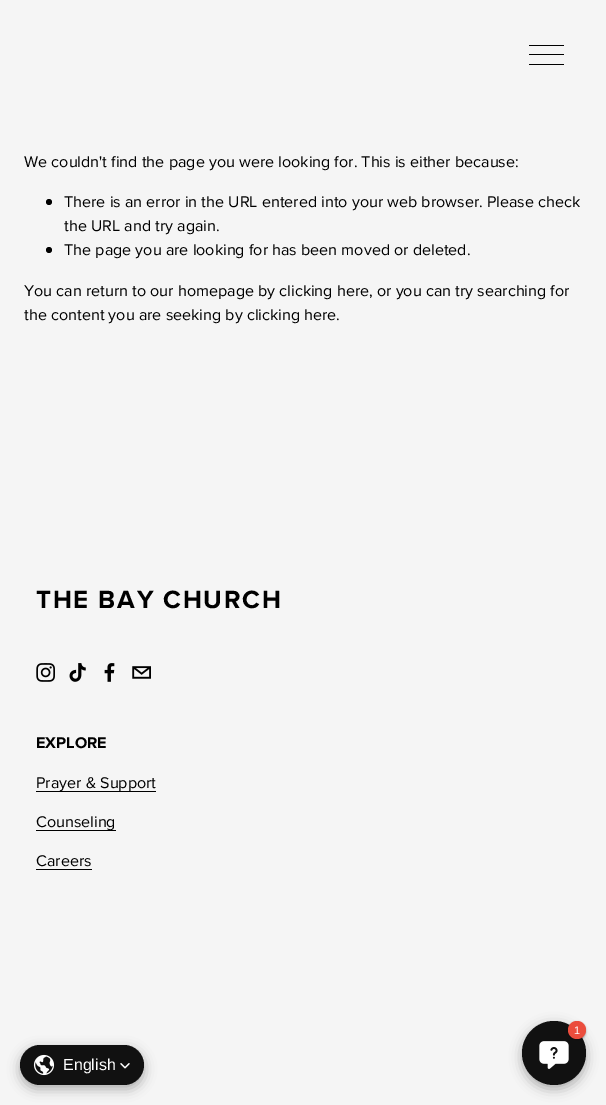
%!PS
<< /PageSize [606 1105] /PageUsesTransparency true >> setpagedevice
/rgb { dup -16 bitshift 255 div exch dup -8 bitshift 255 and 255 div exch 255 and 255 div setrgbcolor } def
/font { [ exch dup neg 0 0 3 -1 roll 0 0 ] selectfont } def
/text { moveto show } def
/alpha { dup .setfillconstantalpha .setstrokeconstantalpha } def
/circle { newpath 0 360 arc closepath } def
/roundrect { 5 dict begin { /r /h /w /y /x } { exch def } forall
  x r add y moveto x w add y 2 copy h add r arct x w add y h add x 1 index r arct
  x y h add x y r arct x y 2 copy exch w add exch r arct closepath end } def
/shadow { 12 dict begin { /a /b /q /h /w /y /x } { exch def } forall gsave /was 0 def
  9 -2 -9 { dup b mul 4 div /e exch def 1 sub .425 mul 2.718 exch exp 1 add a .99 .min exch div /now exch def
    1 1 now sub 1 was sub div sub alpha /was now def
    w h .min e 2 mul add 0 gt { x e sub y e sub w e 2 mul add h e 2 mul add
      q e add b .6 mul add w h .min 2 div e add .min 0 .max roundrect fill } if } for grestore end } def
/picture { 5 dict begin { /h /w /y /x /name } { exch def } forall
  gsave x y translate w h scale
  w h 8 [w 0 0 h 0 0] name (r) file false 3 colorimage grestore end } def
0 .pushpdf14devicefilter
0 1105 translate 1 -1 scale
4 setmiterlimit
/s1 { /ProximaNova-Regular 16.1 font 16#000000 rgb } def
/s2 { /ProximaNova-Bold 16.1 font 16#000000 rgb } def
/s3 { /LiberationSans-Regular 11 font 16#FFFFFF rgb } def
/s4 { /LiberationSans-Regular 16 font 16#FFFFFF rgb } def
16#F5F5F5 rgb
0 0 606 1105 rectfill
16#000000 rgb
529 45 35 1 rectfill
529 54 35 1 rectfill
529 64 35 1 rectfill
s1
(We couldn't find the page you were looking for. This is either because:) 24 167 text
49 202 3 circle fill
(There is an error in the URL entered into your web browser. Please check) 64 207 text
(the URL and try again.) 64 231 text
49 250 3 circle fill
(The page you are looking for has been moved or deleted.) 64 255 text
(You can return to our homepage by clicking here, or you can try searching for) 24 296 text
(the content you are seeking by clicking here.) 24 320 text
/ProximaNova-Bold 25.75 font
36 608 moveto 1.75 0 (THE BAY CHURCH) ashow
(pic1.raw) 36 663 19 19 picture
(pic2.raw) 69 663 17 19 picture
(pic3.raw) 104 663 11 19 picture
(pic4.raw) 132 666 19 13 picture
s2
(EXPLORE) 36 748 text
36 791 120 1 rectfill
s1
(Prayer & Support) 36 788 text
36 830 80 1 rectfill
(Counseling) 36 827 text
(Careers) 36 866 text
36 869 56 1 rectfill
522 1025 64 64 32 6 0.3 shadow
16#111111 rgb
554 1053 32 circle fill
(pic5.raw) 539 1041 30 28 picture
16#000000 rgb
568 1022 18 18 9 1 0.3 shadow
16#EB4D3D rgb
577 1030 9 circle fill
s3
(1) 574 1034 text
16#000000 rgb
20 1049 124 40 20 6 0.3 shadow
16#111111 rgb
20 1045 124 40 20 roundrect fill
(pic6.raw) 33 1054 22 22 picture
s4
(English) 63 1070 text
(pic7.raw) 120 1063 10 6 picture
.poppdf14devicefilter showpage
